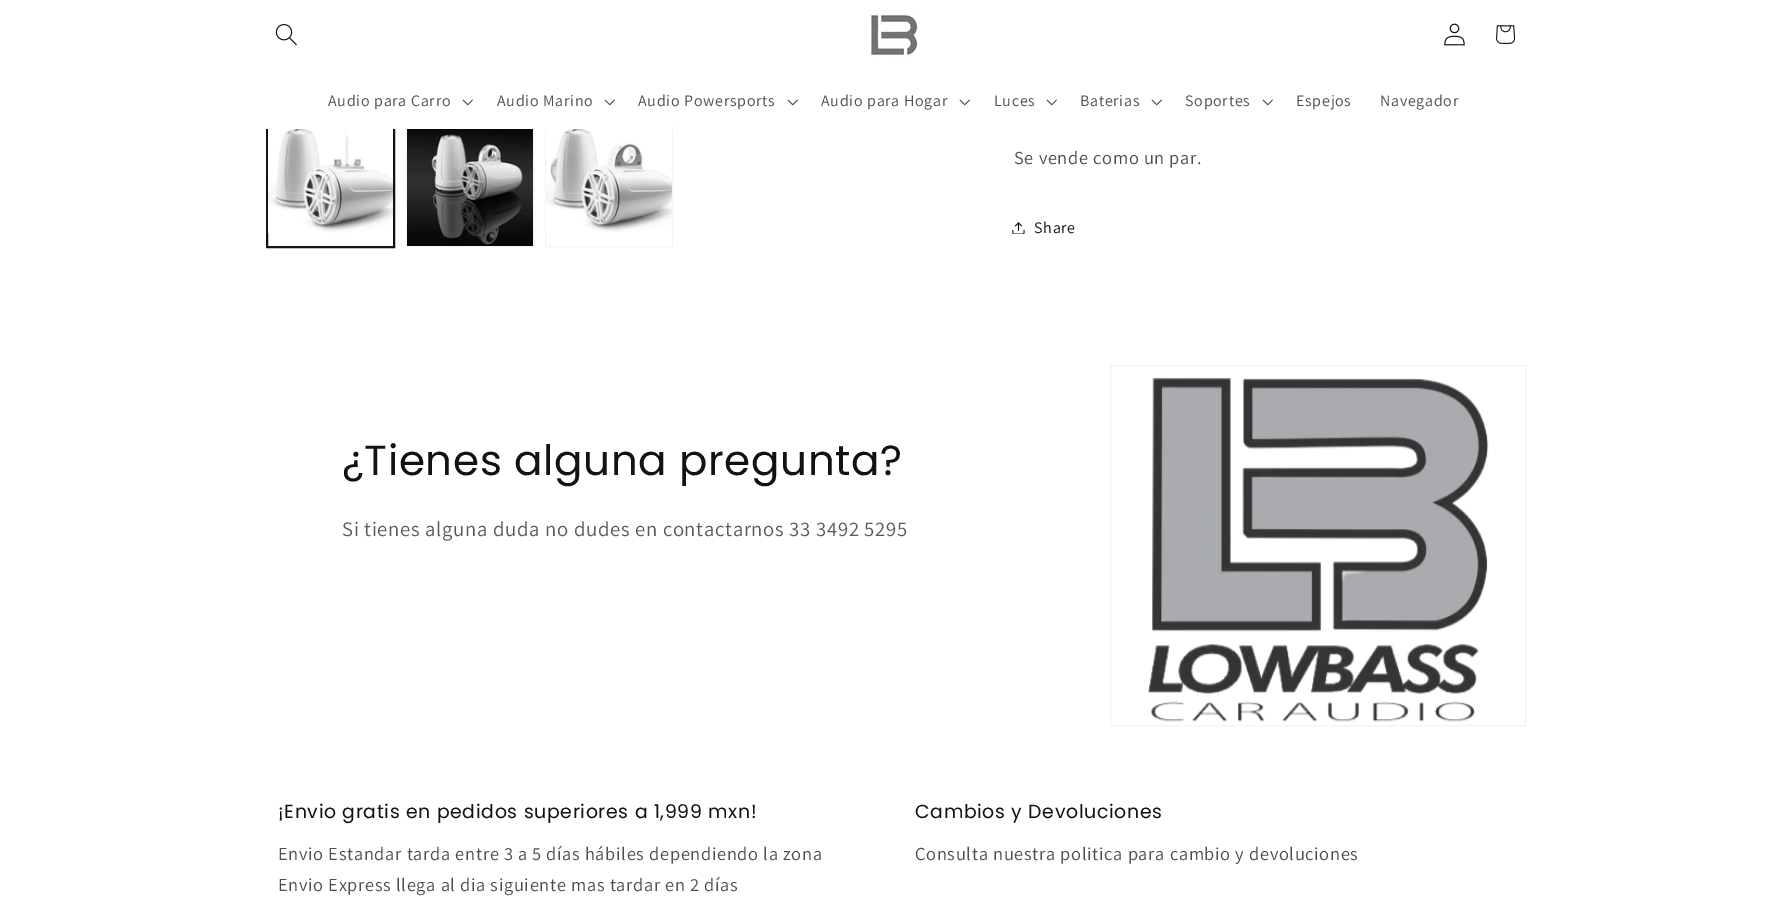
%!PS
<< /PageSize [1787 913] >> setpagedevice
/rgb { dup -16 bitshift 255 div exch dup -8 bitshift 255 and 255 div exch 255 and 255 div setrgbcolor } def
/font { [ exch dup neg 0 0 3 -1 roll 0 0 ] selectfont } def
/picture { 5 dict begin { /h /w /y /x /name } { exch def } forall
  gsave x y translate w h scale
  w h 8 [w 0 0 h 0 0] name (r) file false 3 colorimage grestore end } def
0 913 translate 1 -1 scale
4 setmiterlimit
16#FFFFFF rgb
0 0 1787 913 rectfill
16#121212 rgb
266.5 118.5 128 129 rectstroke
267.5 119.5 126 127 rectstroke
16#F3F3F3 rgb
406.5 119.5 127 127 rectstroke
545.5 119.5 127 127 rectstroke
16#FFFFFF rgb
266 118 407 11 rectfill
(pic1.raw) 275 24 22 22 picture
(pic2.raw) 870 13 48 44 picture
(pic3.raw) 1444 23 21 23 picture
(pic4.raw) 1496 25 20 19 picture
/Assistant-Regular 16 font
16#4D4D4D rgb
328 106 moveto 0.7 0 (Audio para Carro) ashow
(pic5.raw) 462 99 11 7 picture
497 106 moveto 0.7 0 (Audio Marino) ashow
(pic5.raw) 604 99 11 7 picture
638 106 moveto 0.7 0 (Audio Powersports) ashow
(pic5.raw) 787 99 11 7 picture
821 106 moveto 0.7 0 (Audio para Hogar) ashow
(pic5.raw) 959 99 11 7 picture
994 106 moveto 0.7 0 (Luces) ashow
(pic5.raw) 1046 99 11 7 picture
1080 106 moveto 0.7 0 (Baterias) ashow
(pic5.raw) 1151 99 11 7 picture
1185 106 moveto 0.7 0 (Soportes) ashow
(pic5.raw) 1262 99 11 7 picture
1296 106 moveto 0.7 0 (Espejos) ashow
1380 106 moveto 0.7 0 (Navegador) ashow
(pic6.raw) 268 129 125 104 picture
(pic7.raw) 407 129 126 117 picture
(pic8.raw) 546 129 126 103 picture
/Assistant-Regular 18.4 font
1014 164 moveto 0.7 0 (Se vende como un par.) ashow
(pic9.raw) 1012 222 13 12 picture
/Assistant-Regular 16 font
16#121212 rgb
1034 233 moveto 0.7 0 (Share) ashow
/Poppins-Regular 42 font
342 475 moveto 0.65 0 (¿Tienes alguna pregunta?) ashow
/Assistant-Regular 20.7 font
16#595959 rgb
342 536 moveto 0.7 0 (Si tienes alguna duda no dudes en contactarnos 33 3492 5295) ashow
16#F3F3F3 rgb
1110.5 365.5 415 360 rectstroke
(pic10.raw) 1148 377 341 345 picture
/Poppins-Regular 18.9 font
16#121212 rgb
278 818 moveto 0.65 0 (¡Envio gratis en pedidos superiores a 1,999 mxn!) ashow
/Assistant-Regular 18.4 font
16#4D4D4D rgb
278 860 moveto 0.7 0 (Envio Estandar tarda entre 3 a 5 días hábiles dependiendo la zona) ashow
278 891 moveto 0.7 0 (Envio Express llega al dia siguiente mas tardar en 2 días) ashow
/Poppins-Regular 18.9 font
16#121212 rgb
915 818 moveto 0.65 0 (Cambios y Devoluciones) ashow
/Assistant-Regular 18.4 font
16#4D4D4D rgb
915 860 moveto 0.7 0 (Consulta nuestra politica para cambio y devoluciones) ashow
showpage
